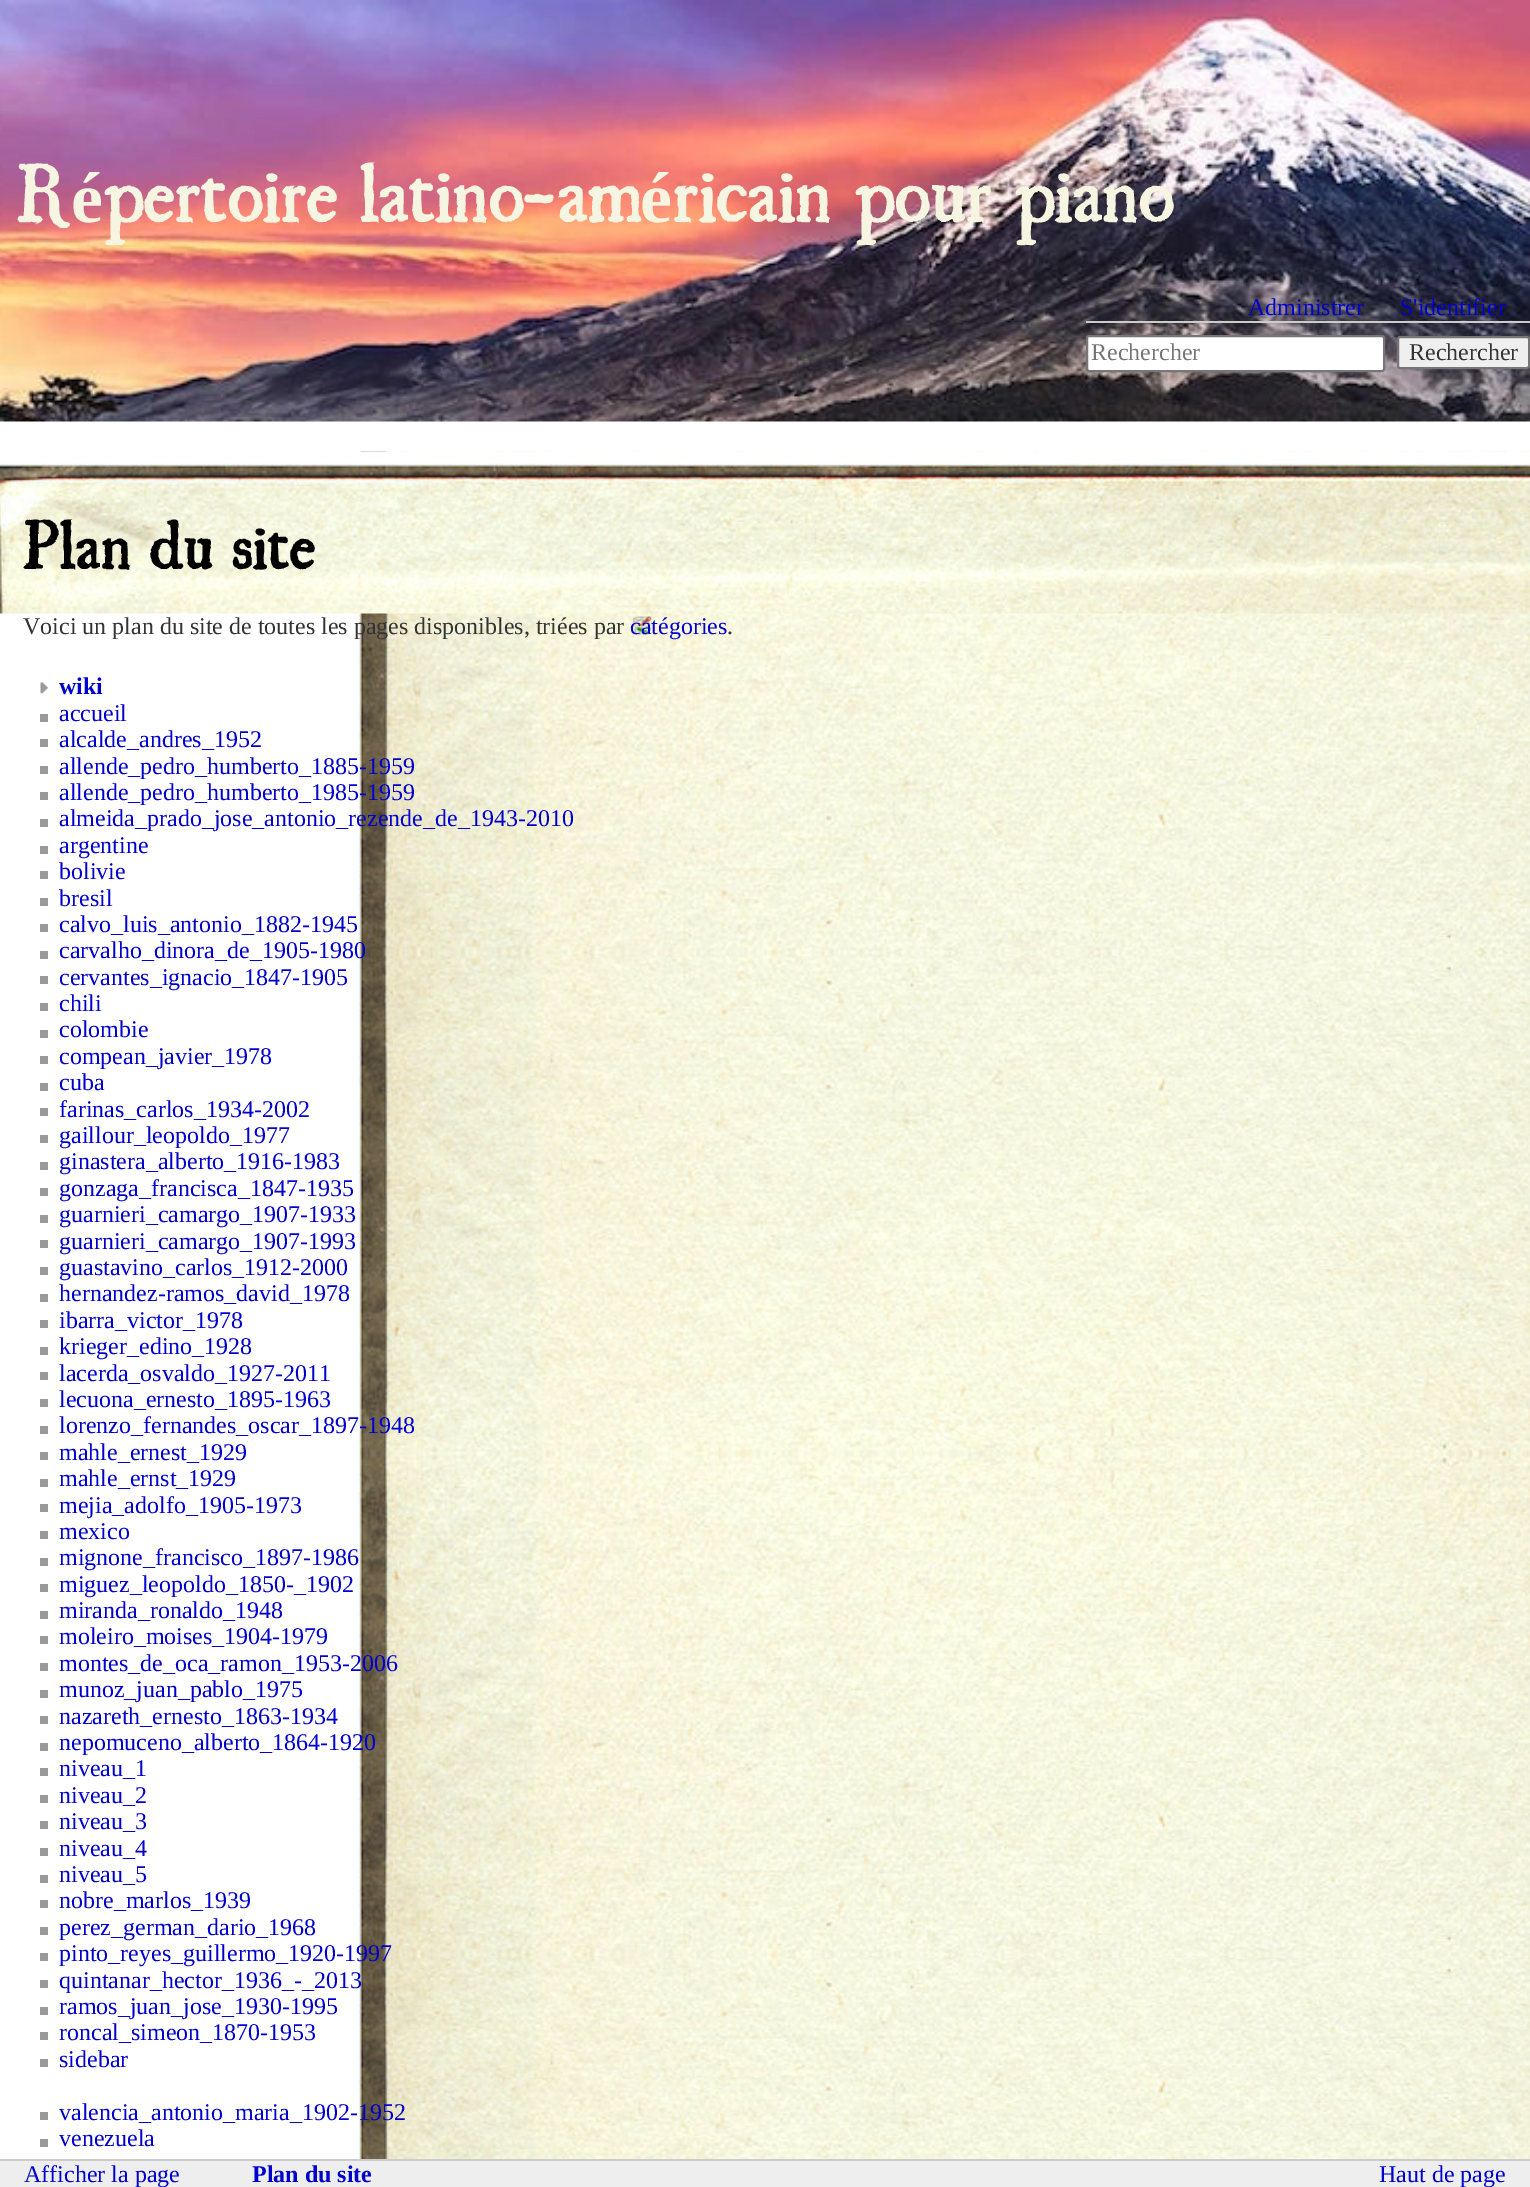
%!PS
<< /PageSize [1530 2187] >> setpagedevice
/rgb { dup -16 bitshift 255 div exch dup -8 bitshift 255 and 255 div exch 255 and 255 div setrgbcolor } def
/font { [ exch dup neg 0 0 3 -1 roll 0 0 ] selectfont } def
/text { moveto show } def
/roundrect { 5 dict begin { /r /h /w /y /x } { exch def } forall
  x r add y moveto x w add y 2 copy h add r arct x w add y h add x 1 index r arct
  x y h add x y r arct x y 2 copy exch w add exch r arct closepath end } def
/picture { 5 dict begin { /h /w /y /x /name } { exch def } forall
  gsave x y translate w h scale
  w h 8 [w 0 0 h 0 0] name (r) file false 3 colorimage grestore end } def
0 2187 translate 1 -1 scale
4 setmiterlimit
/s1 { /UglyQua-Bold 72 font 16#F5F5E1 rgb } def
/s2 { /LiberationSerif-Bold 72 font 16#F5F5E1 rgb } def
/s3 { /LiberationSerif-Regular 24 font 16#0000CC rgb } def
/s4 { /LiberationSerif-Regular 24 font 16#757575 rgb } def
/s5 { /LiberationSerif-Regular 24 font 16#333333 rgb } def
/s6 { /UglyQua-Bold 60 font 16#000000 rgb } def
/s7 { /LiberationSerif-Bold 24 font 16#0000CC rgb } def
16#FFFFFF rgb
0 0 1530 2187 rectfill
(pic1.raw) 0 0 1530 422 picture
s1
(R) 15 222 text
s2
(é) 71 222 text
s1
(pertoire latino-am) 103 222 text
s2
(é) 640 222 text
s1
(ricain pour piano) 672 222 text
16#CCCCCC rgb
1086 321 444 2 rectfill
s3
(Administrer) 1248 315 text
(S'identifier) 1400 315 text
16#FFFFFF rgb
1087 336 297 35 2 roundrect gsave fill grestore
16#767676 rgb
2 setlinewidth
stroke
s4
(Rechercher) 1091 360 text
16#EFEFEF rgb
1398 337 131 31 2 roundrect gsave fill grestore
16#767676 rgb
stroke
s5
(Rechercher) 1409 360 text
(pic2.raw) 358 451 1172 1708 picture
(pic3.raw) 0 451 1530 163 picture
s6
(Plan du site) 23 569 text
s5
(Voici un plan du site de toutes les pages disponibles, triées par) 23 634 text
(pic4.raw) 632 616 20 19 picture
s3
(catégories) 630 634 text
s5
(.) 727 634 text
(pic5.raw) 40 682 8 12 picture
s7
(wiki) 59 694 text
16#999999 rgb
40 714 8 8 rectfill
s3
(accueil) 59 721 text
16#999999 rgb
40 739 8 8 rectfill
s3
(alcalde_andres_1952) 59 747 text
16#999999 rgb
40 766 8 8 rectfill
s3
(allende_pedro_humberto_1885-1959) 59 774 text
16#999999 rgb
40 792 8 8 rectfill
s3
(allende_pedro_humberto_1985-1959) 59 800 text
16#999999 rgb
40 819 8 8 rectfill
s3
(almeida_prado_jose_antonio_rezende_de_1943-2010) 59 826 text
16#999999 rgb
40 846 8 8 rectfill
s3
(argentine) 59 853 text
16#999999 rgb
40 871 8 8 rectfill
s3
(bolivie) 59 879 text
16#999999 rgb
40 898 8 8 rectfill
s3
(bresil) 59 906 text
16#999999 rgb
40 924 8 8 rectfill
s3
(calvo_luis_antonio_1882-1945) 59 932 text
16#999999 rgb
40 951 8 8 rectfill
s3
(carvalho_dinora_de_1905-1980) 59 958 text
16#999999 rgb
40 976 8 8 rectfill
s3
(cervantes_ignacio_1847-1905) 59 985 text
16#999999 rgb
40 1003 8 8 rectfill
s3
(chili) 59 1011 text
16#999999 rgb
40 1030 8 8 rectfill
s3
(colombie) 59 1037 text
16#999999 rgb
40 1056 8 8 rectfill
s3
(compean_javier_1978) 59 1064 text
16#999999 rgb
40 1083 8 8 rectfill
s3
(cuba) 59 1090 text
16#999999 rgb
40 1108 8 8 rectfill
s3
(farinas_carlos_1934-2002) 59 1117 text
16#999999 rgb
40 1135 8 8 rectfill
s3
(gaillour_leopoldo_1977) 59 1143 text
16#999999 rgb
40 1162 8 8 rectfill
s3
(ginastera_alberto_1916-1983) 59 1169 text
16#999999 rgb
40 1188 8 8 rectfill
s3
(gonzaga_francisca_1847-1935) 59 1196 text
16#999999 rgb
40 1215 8 8 rectfill
s3
(guarnieri_camargo_1907-1933) 59 1222 text
16#999999 rgb
40 1240 8 8 rectfill
s3
(guarnieri_camargo_1907-1993) 59 1249 text
16#999999 rgb
40 1267 8 8 rectfill
s3
(guastavino_carlos_1912-2000) 59 1275 text
16#999999 rgb
40 1294 8 8 rectfill
s3
(hernandez-ramos_david_1978) 59 1301 text
16#999999 rgb
40 1320 8 8 rectfill
s3
(ibarra_victor_1978) 59 1328 text
16#999999 rgb
40 1347 8 8 rectfill
s3
(krieger_edino_1928) 59 1354 text
16#999999 rgb
40 1372 8 8 rectfill
s3
(lacerda_osvaldo_1927-2011) 59 1381 text
16#999999 rgb
40 1399 8 8 rectfill
s3
(lecuona_ernesto_1895-1963) 59 1407 text
16#999999 rgb
40 1426 8 8 rectfill
s3
(lorenzo_fernandes_oscar_1897-1948) 59 1433 text
16#999999 rgb
40 1452 8 8 rectfill
s3
(mahle_ernest_1929) 59 1460 text
16#999999 rgb
40 1479 8 8 rectfill
s3
(mahle_ernst_1929) 59 1486 text
16#999999 rgb
40 1504 8 8 rectfill
s3
(mejia_adolfo_1905-1973) 59 1513 text
16#999999 rgb
40 1531 8 8 rectfill
s3
(mexico) 59 1539 text
16#999999 rgb
40 1558 8 8 rectfill
s3
(mignone_francisco_1897-1986) 59 1565 text
16#999999 rgb
40 1584 8 8 rectfill
s3
(miguez_leopoldo_1850-_1902) 59 1592 text
16#999999 rgb
40 1611 8 8 rectfill
s3
(miranda_ronaldo_1948) 59 1618 text
16#999999 rgb
40 1636 8 8 rectfill
s3
(moleiro_moises_1904-1979) 59 1644 text
16#999999 rgb
40 1663 8 8 rectfill
s3
(montes_de_oca_ramon_1953-2006) 59 1671 text
16#999999 rgb
40 1690 8 8 rectfill
s3
(munoz_juan_pablo_1975) 59 1697 text
16#999999 rgb
40 1716 8 8 rectfill
s3
(nazareth_ernesto_1863-1934) 59 1724 text
16#999999 rgb
40 1743 8 8 rectfill
s3
(nepomuceno_alberto_1864-1920) 59 1750 text
16#999999 rgb
40 1768 8 8 rectfill
s3
(niveau_1) 59 1776 text
16#999999 rgb
40 1795 8 8 rectfill
s3
(niveau_2) 59 1803 text
16#999999 rgb
40 1821 8 8 rectfill
s3
(niveau_3) 59 1829 text
16#999999 rgb
40 1848 8 8 rectfill
s3
(niveau_4) 59 1856 text
16#999999 rgb
40 1875 8 8 rectfill
s3
(niveau_5) 59 1882 text
16#999999 rgb
40 1900 8 8 rectfill
s3
(nobre_marlos_1939) 59 1908 text
16#999999 rgb
40 1927 8 8 rectfill
s3
(perez_german_dario_1968) 59 1935 text
16#999999 rgb
40 1953 8 8 rectfill
s3
(pinto_reyes_guillermo_1920-1997) 59 1961 text
16#999999 rgb
40 1980 8 8 rectfill
s3
(quintanar_hector_1936_-_2013) 59 1988 text
16#999999 rgb
40 2007 8 8 rectfill
s3
(ramos_juan_jose_1930-1995) 59 2014 text
16#999999 rgb
40 2032 8 8 rectfill
s3
(roncal_simeon_1870-1953) 59 2040 text
16#999999 rgb
40 2059 8 8 rectfill
s3
(sidebar) 59 2067 text
16#999999 rgb
40 2112 8 8 rectfill
s3
(valencia_antonio_maria_1902-1952) 59 2120 text
16#999999 rgb
40 2139 8 8 rectfill
s3
(venezuela) 59 2146 text
16#EEEEEE rgb
0 2161 1530 26 rectfill
16#CCCCCC rgb
0 2159 1530 2 rectfill
s3
(Afficher la page) 24 2182 text
s7
(Plan du site) 252 2182 text
s3
(Haut de page) 1379 2182 text
showpage
